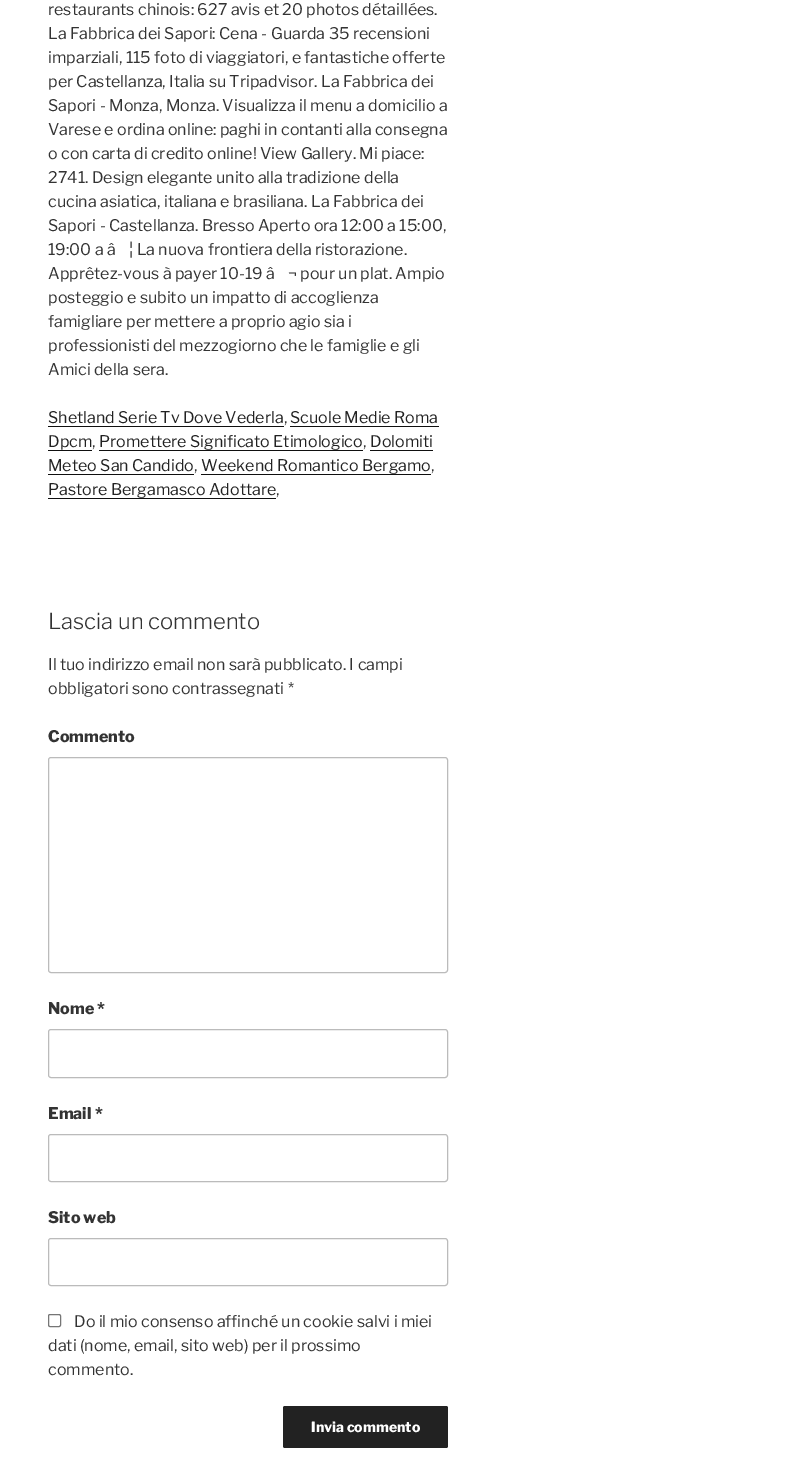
%!PS
<< /PageSize [786 1478] >> setpagedevice
/rgb { dup -16 bitshift 255 div exch dup -8 bitshift 255 and 255 div exch 255 and 255 div setrgbcolor } def
/font { [ exch dup neg 0 0 3 -1 roll 0 0 ] selectfont } def
/text { moveto show } def
/roundrect { 5 dict begin { /r /h /w /y /x } { exch def } forall
  x r add y moveto x w add y 2 copy h add r arct x w add y h add x 1 index r arct
  x y h add x y r arct x y 2 copy exch w add exch r arct closepath end } def
0 1478 translate 1 -1 scale
4 setmiterlimit
/s1 { /LibreFranklin-Regular 16 font 16#333333 rgb } def
/s2 { /LibreFranklin-Regular 16 font 16#222222 rgb } def
/s3 { /LibreFranklin-Light 22 font 16#333333 rgb } def
/s4 { /LibreFranklin-ExtraBold 16 font 16#333333 rgb } def
/s5 { /LibreFranklin-ExtraBold 14 font 16#FFFFFF rgb } def
16#FFFFFF rgb
0 0 786 1478 rectfill
s1
(restaurants chinois: 627 avis et 20 photos détaillées.) 48 15 text
(La Fabbrica dei Sapori: Cena - Guarda 35 recensioni) 48 39 text
(imparziali, 115 foto di viaggiatori, e fantastiche offerte) 48 63 text
(per Castellanza, Italia su Tripadvisor. La Fabbrica dei) 48 87 text
(Sapori - Monza, Monza. Visualizza il menu a domicilio a) 48 111 text
(Varese e ordina online: paghi in contanti alla consegna) 48 135 text
(o con carta di credito online! View Gallery. Mi piace:) 48 159 text
(2741. Design elegante unito alla tradizione della) 48 183 text
(cucina asiatica, italiana e brasiliana. La Fabbrica dei) 48 207 text
(Sapori - Castellanza. Bresso Aperto ora 12:00 a 15:00,) 48 231 text
(19:00 a â) 48 255 text
(¦ La nuova frontiera della ristorazione.) 129 255 text
(Apprêtez-vous à payer 10-19 â) 48 279 text
(¬ pour un plat. Ampio) 288 279 text
(posteggio e subito un impatto di accoglienza) 48 303 text
(famigliare per mettere a proprio agio sia i) 48 327 text
(professionisti del mezzogiorno che le famiglie e gli) 48 351 text
(Amici della sera.) 48 375 text
s2
(Shetland Serie Tv Dove Vederla) 48 423 text
16#0F0F0F rgb
48 426 236 1 rectfill
s1
(,) 284 423 text
s2
(Scuole Medie Roma) 290 423 text
16#0F0F0F rgb
290 426 149 1 rectfill
s2
(Dpcm) 48 447 text
16#0F0F0F rgb
48 450 44 1 rectfill
s1
(,) 92 447 text
s2
(Promettere Significato Etimologico) 99 447 text
16#0F0F0F rgb
99 450 264 1 rectfill
s1
(,) 363 447 text
s2
(Dolomiti) 370 447 text
16#0F0F0F rgb
370 450 63 1 rectfill
s2
(Meteo San Candido) 48 471 text
16#0F0F0F rgb
48 474 146 1 rectfill
s1
(,) 194 471 text
s2
(Weekend Romantico Bergamo) 201 471 text
16#0F0F0F rgb
201 474 230 1 rectfill
s1
(,) 431 471 text
s2
(Pastore Bergamasco Adottare) 48 495 text
16#0F0F0F rgb
48 498 228 1 rectfill
s1
(,) 276 495 text
s3
(Lascia un commento) 48 629 text
s1
(Il tuo indirizzo email non sarà pubblicato. I campi) 48 670 text
(obbligatori sono contrassegnati *) 48 694 text
s4
(Commento) 48 742 text
16#BBBBBB rgb
48.5 757.5 399 215 2.5 roundrect stroke
s4
(Nome *) 48 1014 text
16#BBBBBB rgb
48.5 1029.5 399 48 2.5 roundrect stroke
s4
(Email *) 48 1119 text
16#BBBBBB rgb
48.5 1134.5 399 47 2.5 roundrect stroke
s4
(Sito web) 48 1223 text
16#BBBBBB rgb
48.5 1238.5 399 47 2.5 roundrect stroke
16#767676 rgb
48.5 1314.5 12 12 1.5 roundrect stroke
s1
(Do il mio consenso affinché un cookie salvi i miei) 74 1327 text
(dati \(nome, email, sito web\) per il prossimo) 48 1351 text
(commento.) 48 1375 text
16#222222 rgb
283 1406 165 42 2 roundrect fill
s5
(Invia commento) 311 1432 text
showpage
